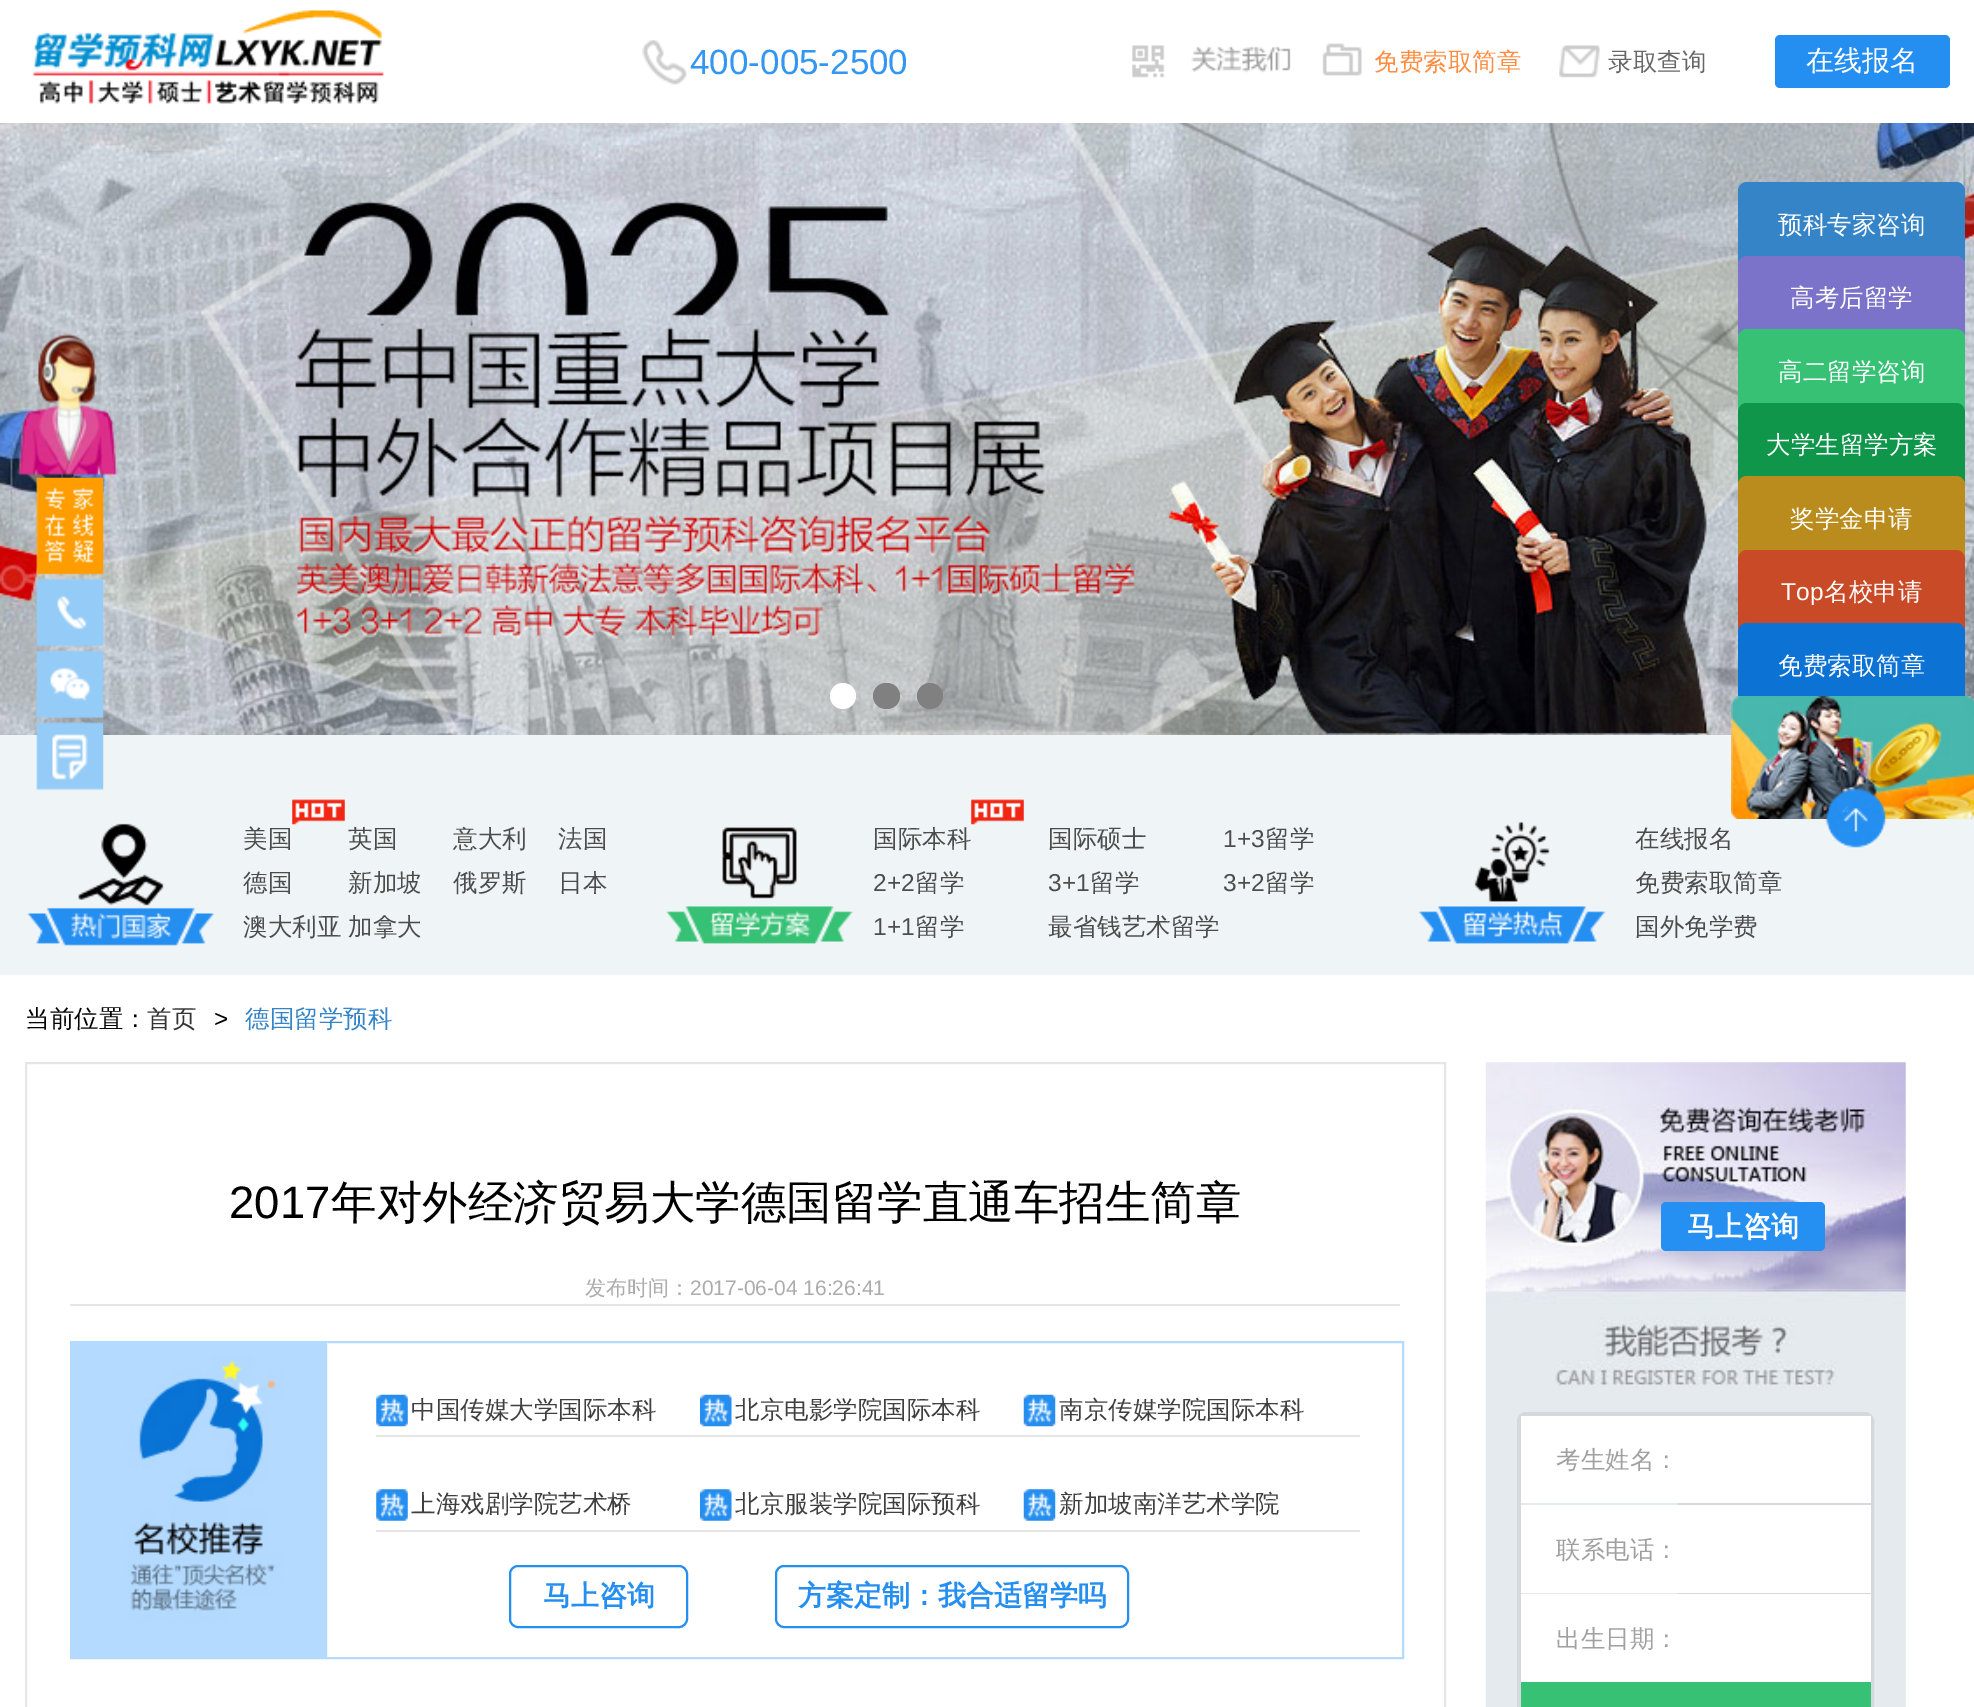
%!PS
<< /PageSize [1974 1707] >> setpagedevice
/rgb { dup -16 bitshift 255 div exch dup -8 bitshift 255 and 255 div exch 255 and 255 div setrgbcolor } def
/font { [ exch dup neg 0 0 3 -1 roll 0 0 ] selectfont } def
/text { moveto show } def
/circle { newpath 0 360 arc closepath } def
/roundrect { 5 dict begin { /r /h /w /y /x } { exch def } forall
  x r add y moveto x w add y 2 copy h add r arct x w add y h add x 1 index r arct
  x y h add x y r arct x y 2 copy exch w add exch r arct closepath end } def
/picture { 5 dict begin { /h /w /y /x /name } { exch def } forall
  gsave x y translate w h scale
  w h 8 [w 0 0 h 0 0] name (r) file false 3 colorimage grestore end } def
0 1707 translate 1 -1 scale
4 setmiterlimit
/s1 { /LiberationSans-Regular 35 font 16#3396F2 rgb } def
/s2 { /WenQuanYiZenHei-Medium 24.5 font 16#FF8C40 rgb } def
/s3 { /WenQuanYiZenHei-Medium 24.5 font 16#666666 rgb } def
/s4 { /WenQuanYiZenHei-Medium 28 font 16#FFFFFF rgb } def
/s5 { /WenQuanYiZenHei-Medium 24.5 font 16#FFFFFF rgb } def
/s6 { /LiberationSans-Regular 24.5 font 16#FFFFFF rgb } def
/s7 { /WenQuanYiZenHei-Medium 24.5 font 16#4C4C4C rgb } def
/s8 { /LiberationSans-Regular 24.5 font 16#4C4C4C rgb } def
/s9 { /WenQuanYiZenHei-Medium 24.5 font 16#000000 rgb } def
/s10 { /WenQuanYiZenHei-Medium 24.5 font 16#333333 rgb } def
/s11 { /LiberationSans-Regular 24.5 font 16#000000 rgb } def
/s12 { /WenQuanYiZenHei-Medium 24.5 font 16#3584C7 rgb } def
/s13 { /LiberationSans-Regular 45.5 font 16#000000 rgb } def
/s14 { /WenQuanYiZenHei-Medium 45.5 font 16#000000 rgb } def
/s15 { /WenQuanYiZenHei-Medium 21 font 16#ACACAC rgb } def
/s16 { /LiberationSans-Regular 21 font 16#ACACAC rgb } def
/s17 { /WenQuanYiZenHei-Medium 24.5 font 16#3F3F3F rgb } def
/s18 { /WenQuanYiZenHei-Bold 28 font 16#258FF1 rgb } def
/s19 { /WenQuanYiZenHei-Bold 28 font 16#FFFFFF rgb } def
/s20 { /WenQuanYiZenHei-Medium 24.5 font 16#A0A0A0 rgb } def
16#FFFFFF rgb
0 0 1974 1707 rectfill
(pic1.raw) 32 10 352 94 picture
(pic2.raw) 642 40 45 45 picture
s1
(400-005-2500) 690 74 text
(pic3.raw) 1132 45 159 33 picture
(pic4.raw) 1322 43 40 33 picture
s2
(免费索取简章) 1374 70 text
(pic5.raw) 1559 45 41 33 picture
s3
(录取查询) 1608 70 text
16#258FF1 rgb
1775 35 175 53 5 roundrect fill
s4
(在线报名) 1806 70 text
(pic6.raw) 0 123 1974 612 picture
(pic7.raw) 19 461 29 25 picture
843 696 13 circle fill
16#808080 rgb
873 683 27 26 13 roundrect fill
930 696 13 circle fill
(pic8.raw) 17 333 101 143 picture
(pic9.raw) 36 477 68 98 picture
(pic10.raw) 36 578 68 69 picture
(pic11.raw) 36 650 68 68 picture
16#EFF4F7 rgb
0 735 1974 240 rectfill
(pic12.raw) 36 722 68 69 picture
16#3584C7 rgb
1738 182 227 86 9 roundrect fill
s5
(预科专家咨询) 1778 233 text
16#7B73C9 rgb
1738 256 227 85 9 roundrect fill
s5
(高考后留学) 1790 306 text
16#37C174 rgb
1738 329 227 86 9 roundrect fill
s5
(高二留学咨询) 1778 380 text
16#0F964A rgb
1738 403 227 85 9 roundrect fill
s5
(大学生留学方案) 1766 453 text
16#BA8C1D rgb
1738 476 227 86 9 roundrect fill
s5
(奖学金申请) 1790 527 text
16#C94A27 rgb
1738 550 227 85 9 roundrect fill
s6
(Top) 1781 600 text
s5
(名校申请) 1824 600 text
16#0C72D4 rgb
1738 623 227 86 9 roundrect fill
s5
(免费索取简章) 1778 674 text
(pic13.raw) 1731 696 243 123 picture
(pic14.raw) 1825 787 62 62 picture
(pic15.raw) 27 823 187 123 picture
(pic16.raw) 292 799 53 26 picture
s7
(美国) 243 847 text
(英国) 348 847 text
(意大利) 453 847 text
(法国) 558 847 text
(德国) 243 891 text
(新加坡) 348 891 text
(俄罗斯) 453 891 text
(日本) 558 891 text
(澳大利亚) 243 935 text
(加拿大) 348 935 text
(pic17.raw) 666 827 187 117 picture
(pic16.raw) 971 799 53 26 picture
(国际本科) 873 847 text
(国际硕士) 1048 847 text
s8
(1+3) 1223 847 text
s7
(留学) 1265 847 text
s8
(2+2) 873 891 text
s7
(留学) 915 891 text
s8
(3+1) 1048 891 text
s7
(留学) 1090 891 text
s8
(3+2) 1223 891 text
s7
(留学) 1265 891 text
s8
(1+1) 873 935 text
s7
(留学) 915 935 text
(最省钱艺术留学) 1048 935 text
(pic18.raw) 1418 822 188 122 picture
(在线报名) 1635 847 text
(免费索取简章) 1635 891 text
(国外免学费) 1635 935 text
s9
(当前位置：) 25 1027 text
s10
(首页) 147 1027 text
s11
(>) 214 1027 text
s12
(德国留学预科) 245 1027 text
16#E6E6E6 rgb
2 setlinewidth
26 1063 1419 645 rectstroke
70 1304 1330 2 rectfill
s13
(2017) 229 1218 text
s14
(年对外经济贸易大学德国留学直通车招生简章) 331 1218 text
s15
(发布时间：) 585 1295 text
s16
(2017-06-04 16:26:41) 690 1295 text
16#B3DAFF rgb
71 1342 1332 316 rectstroke
(pic19.raw) 72 1343 256 314 picture
16#E5E5E5 rgb
376 1435 984 2 rectfill
(pic20.raw) 376 1394 32 33 picture
s17
(中国传媒大学国际本科) 411 1418 text
(pic21.raw) 700 1394 32 33 picture
(北京电影学院国际本科) 735 1418 text
(pic22.raw) 1023 1394 33 33 picture
(南京传媒学院国际本科) 1059 1418 text
16#E5E5E5 rgb
376 1530 984 2 rectfill
(pic23.raw) 376 1489 32 32 picture
s17
(上海戏剧学院艺术桥) 411 1512 text
(pic24.raw) 700 1489 32 32 picture
(北京服装学院国际预科) 735 1512 text
(pic25.raw) 1023 1489 33 32 picture
(新加坡南洋艺术学院) 1059 1512 text
16#258FF1 rgb
510 1566 177 61 8 roundrect stroke
s18
(马上咨询) 543 1605 text
776 1566 352 61 8 roundrect stroke
(方案定制：我合适留学吗) 798 1605 text
(pic27.raw) 1485 1289 421 418 picture
(pic26.raw) 1485 1062 421 228 picture
16#2590F2 rgb
1661 1202 164 49 5 roundrect fill
s19
(马上咨询) 1687 1236 text
16#D5D8DD rgb
4 setlinewidth
1519 1414 353 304 7 roundrect stroke
16#FFFFFF rgb
1521 1416 350 87 rectfill
s20
(考生姓名：) 1556 1468 text
16#D5D8DD rgb
1678 1503 193 2 rectfill
16#FFFFFF rgb
1521 1505 350 88 rectfill
s20
(联系电话：) 1556 1558 text
16#D5D8DD rgb
1678 1593 193 1 rectfill
16#FFFFFF rgb
1521 1594 350 88 rectfill
s20
(出生日期：) 1556 1647 text
16#37C174 rgb
1521 1682 350 25 rectfill
showpage
